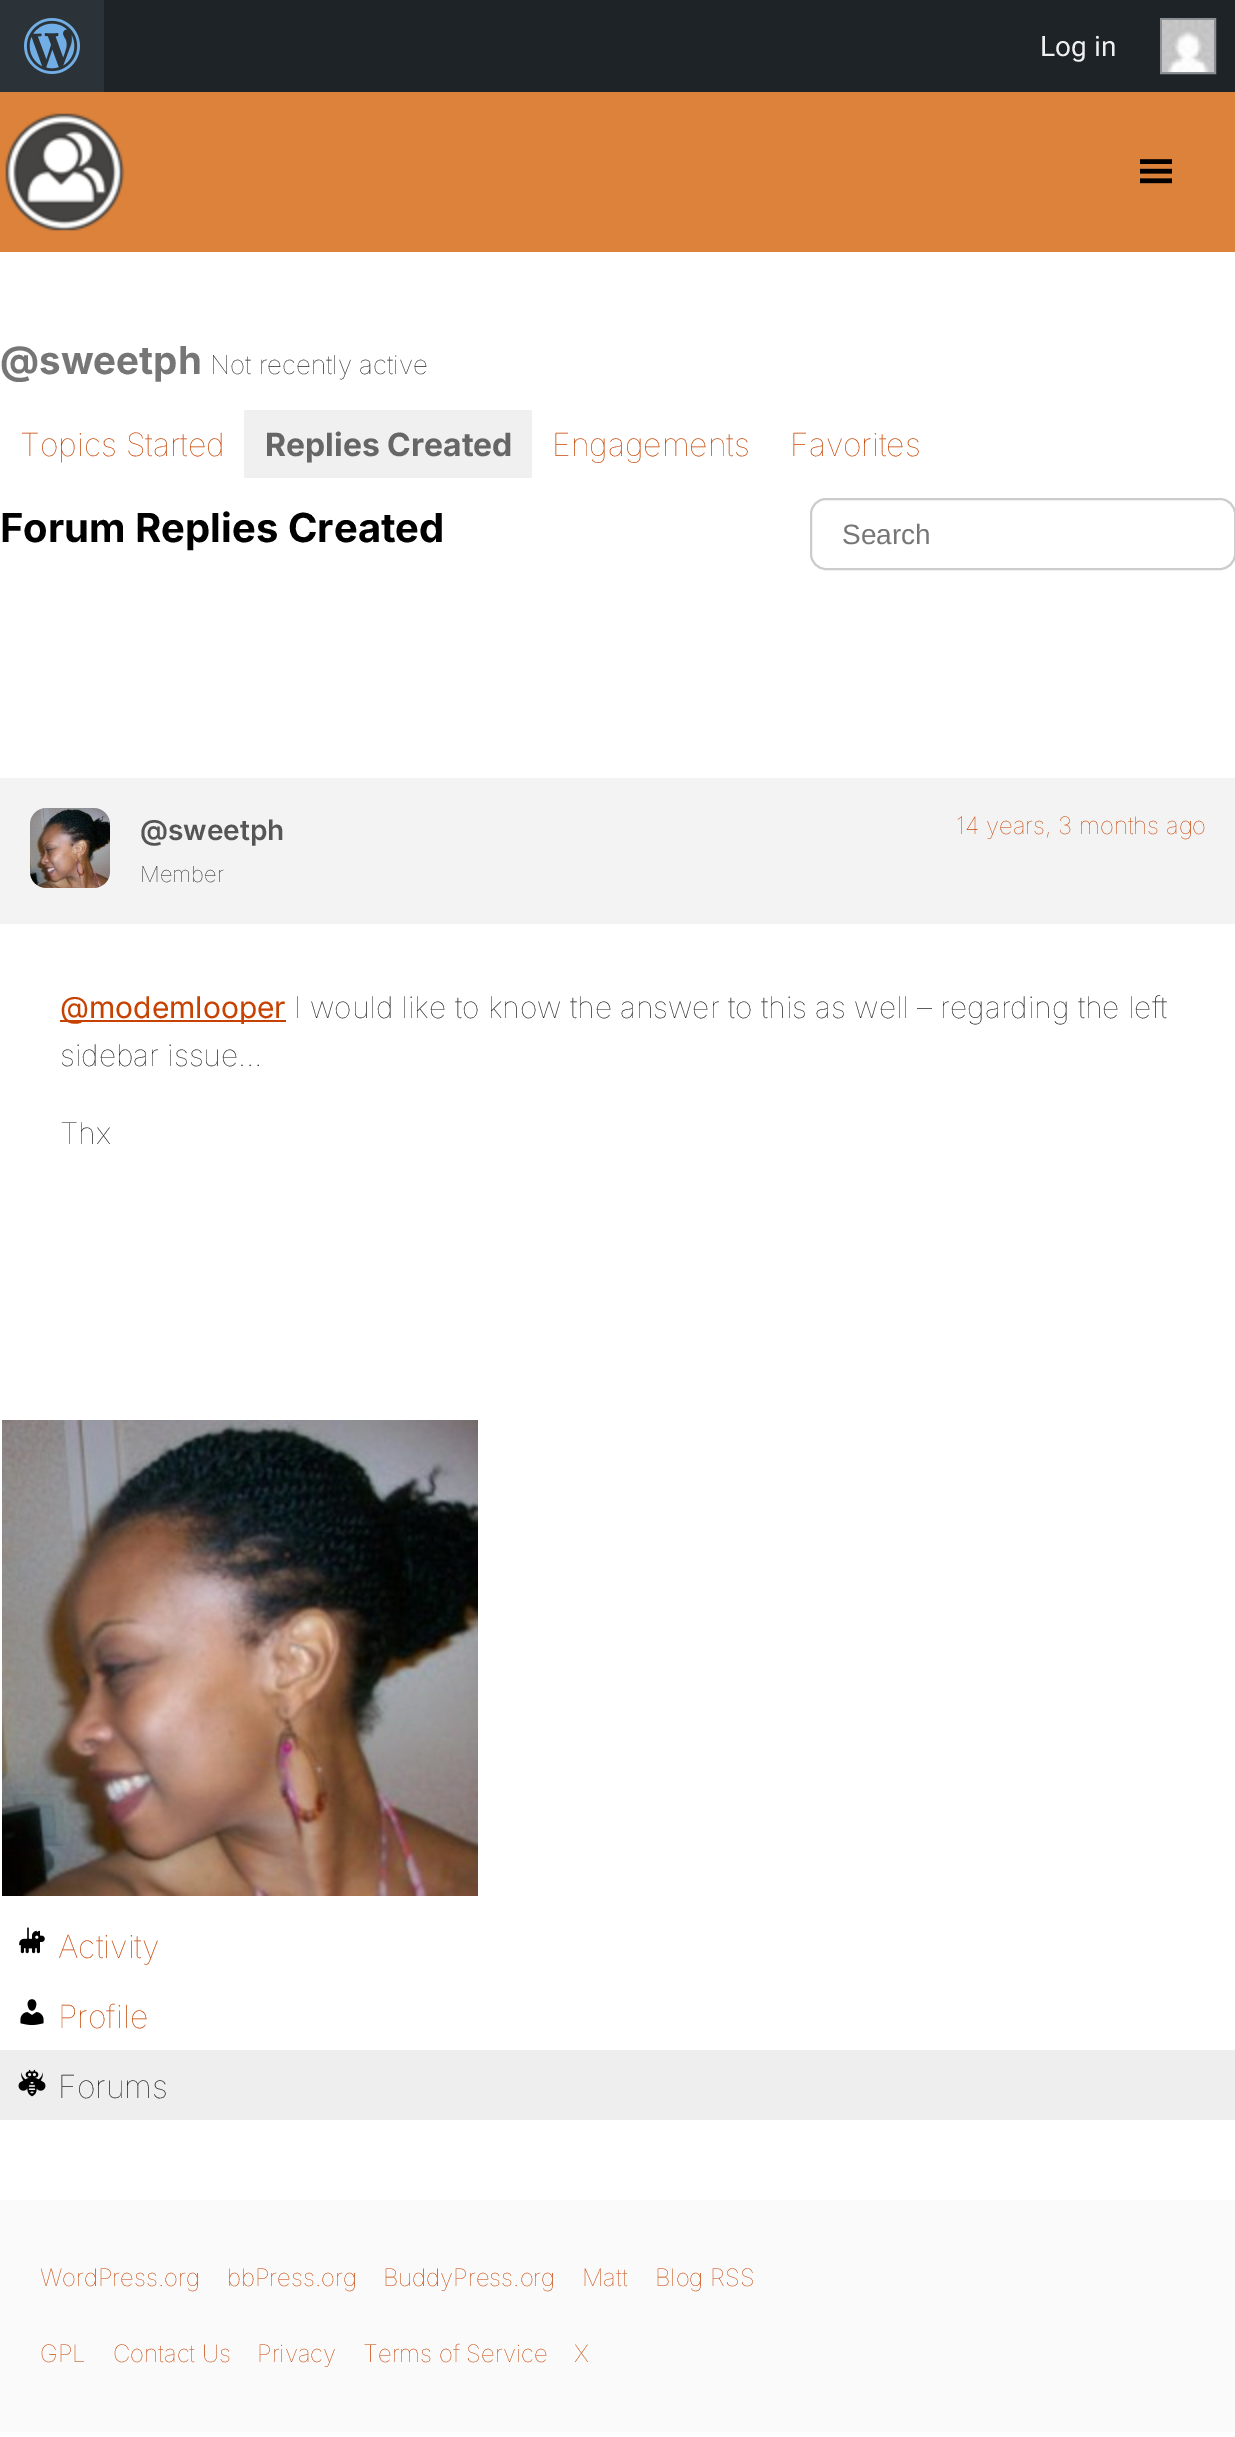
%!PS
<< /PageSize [1235 2437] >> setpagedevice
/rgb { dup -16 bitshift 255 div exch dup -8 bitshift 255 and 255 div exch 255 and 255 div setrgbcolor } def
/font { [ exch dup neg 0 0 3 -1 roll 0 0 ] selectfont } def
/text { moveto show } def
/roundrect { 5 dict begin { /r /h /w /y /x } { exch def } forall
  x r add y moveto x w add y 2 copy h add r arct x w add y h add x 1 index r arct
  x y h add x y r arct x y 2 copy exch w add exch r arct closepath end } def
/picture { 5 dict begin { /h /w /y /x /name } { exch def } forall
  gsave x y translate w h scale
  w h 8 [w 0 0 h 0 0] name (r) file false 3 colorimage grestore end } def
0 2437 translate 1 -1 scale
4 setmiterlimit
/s1 { /Roboto-Regular 28 font 16#F0F0F1 rgb } def
/s2 { /Inter-Bold 38.5 font 16#767676 rgb } def
/s3 { /Inter-Thin 26 font 16#222222 rgb } def
/s4 { /Inter-Thin 32 font 16#C74200 rgb } def
/s5 { /Inter-Bold 32 font 16#666666 rgb } def
/s6 { /Inter-Bold 40 font 16#000000 rgb } def
/s7 { /LiberationSans-Regular 28 font 16#767676 rgb } def
/s8 { /Inter-SemiBold 28 font 16#555555 rgb } def
/s9 { /Inter-Thin 22 font 16#222222 rgb } def
/s10 { /Inter-Thin 24 font 16#C74200 rgb } def
/s11 { /Inter-Regular 30 font 16#C74200 rgb } def
/s12 { /Inter-Thin 30 font 16#222222 rgb } def
/s13 { /Inter-Thin 32 font 16#222222 rgb } def
16#FFFFFF rgb
0 0 1235 2437 rectfill
16#1D2327 rgb
104 0 1131 92 rectfill
16#2C3338 rgb
0 0 104 92 rectfill
(pic1.raw) 24 18 56 56 picture
s1
(Log in) 1040 56 text
16#8C8F94 rgb
2 setlinewidth
1161 19 54 54 rectstroke
(pic2.raw) 1162 20 52 52 picture
16#DD823B rgb
0 92 1235 160 rectfill
(pic3.raw) 5 113 120 118 picture
(pic4.raw) 1140 159 32 25 picture
s2
(@sweetph) 0 374 text
s3
(Not recently active) 210 374 text
s4
(Topics Started) 20 456 text
16#F0F0F0 rgb
244 410 288 68 rectfill
s5
(Replies Created) 265 456 text
s4
(Engagements) 552 456 text
(Favorites) 790 456 text
s6
(Forum Replies Created) 0 542 text
16#CCCCCC rgb
811 499 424 70 15 roundrect stroke
s7
(Search) 842 544 text
16#F3F3F3 rgb
0 778 1235 146 rectfill
(pic5.raw) 30 808 80 80 picture
s8
(@sweetph) 140 840 text
s9
(Member) 140 882 text
s10
(14 years, 3 months ago) 956 834 text
60 1020 226 2 rectfill
s11
(@modemlooper) 60 1018 text
s12
(I would like to know the answer to this as well – regarding the left) 294 1018 text
(sidebar issue…) 60 1066 text
(Thx) 60 1144 text
(pic6.raw) 2 1420 476 476 picture
(pic7.raw) 19 1927 26 27 picture
s4
(Activity) 58 1958 text
(pic8.raw) 20 1999 24 27 picture
(Profile) 58 2028 text
16#EEEEEE rgb
0 2050 1235 70 rectfill
(pic9.raw) 18 2069 28 28 picture
s13
(Forums) 58 2098 text
16#FAFAFA rgb
0 2200 1235 232 rectfill
s10
(WordPress.org) 40 2286 text
(bbPress.org) 227 2286 text
(BuddyPress.org) 383 2286 text
(Matt) 582 2286 text
(Blog RSS) 655 2286 text
(GPL) 40 2362 text
(Contact Us) 113 2362 text
(Privacy) 257 2362 text
(Terms of Service) 363 2362 text
(X) 574 2362 text
showpage
